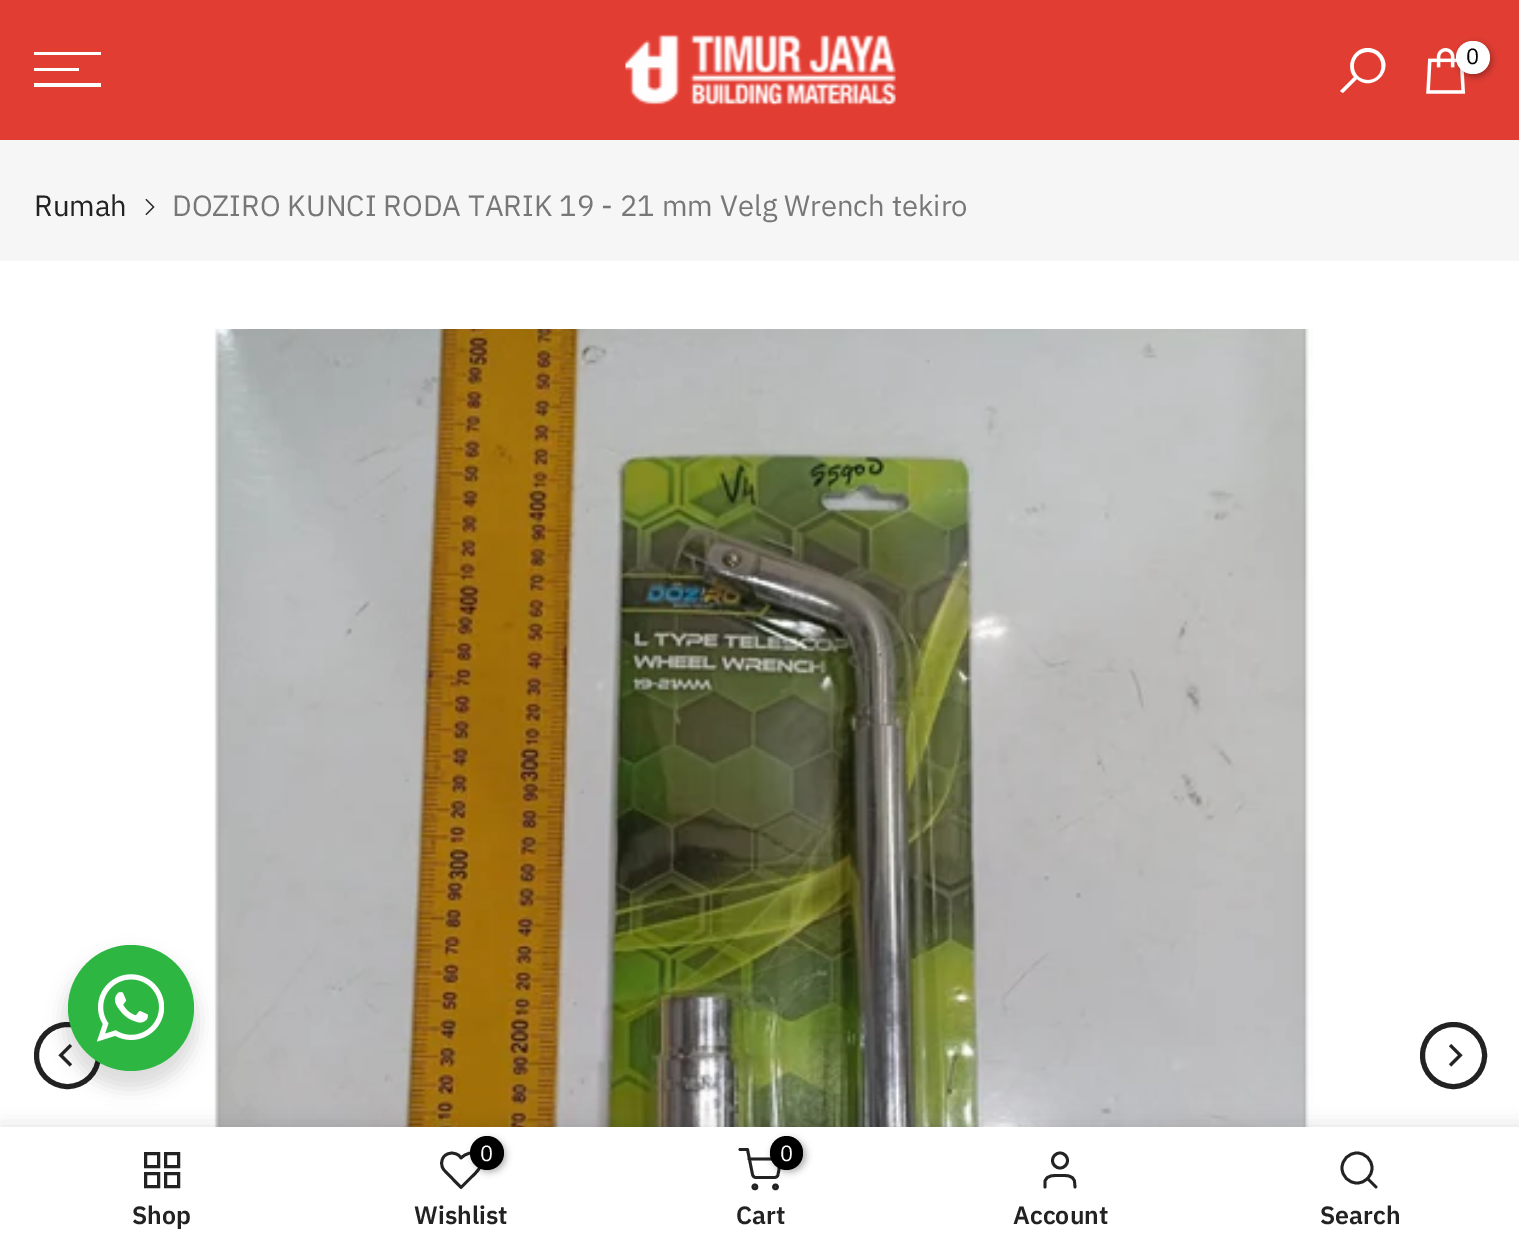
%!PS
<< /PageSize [1519 1250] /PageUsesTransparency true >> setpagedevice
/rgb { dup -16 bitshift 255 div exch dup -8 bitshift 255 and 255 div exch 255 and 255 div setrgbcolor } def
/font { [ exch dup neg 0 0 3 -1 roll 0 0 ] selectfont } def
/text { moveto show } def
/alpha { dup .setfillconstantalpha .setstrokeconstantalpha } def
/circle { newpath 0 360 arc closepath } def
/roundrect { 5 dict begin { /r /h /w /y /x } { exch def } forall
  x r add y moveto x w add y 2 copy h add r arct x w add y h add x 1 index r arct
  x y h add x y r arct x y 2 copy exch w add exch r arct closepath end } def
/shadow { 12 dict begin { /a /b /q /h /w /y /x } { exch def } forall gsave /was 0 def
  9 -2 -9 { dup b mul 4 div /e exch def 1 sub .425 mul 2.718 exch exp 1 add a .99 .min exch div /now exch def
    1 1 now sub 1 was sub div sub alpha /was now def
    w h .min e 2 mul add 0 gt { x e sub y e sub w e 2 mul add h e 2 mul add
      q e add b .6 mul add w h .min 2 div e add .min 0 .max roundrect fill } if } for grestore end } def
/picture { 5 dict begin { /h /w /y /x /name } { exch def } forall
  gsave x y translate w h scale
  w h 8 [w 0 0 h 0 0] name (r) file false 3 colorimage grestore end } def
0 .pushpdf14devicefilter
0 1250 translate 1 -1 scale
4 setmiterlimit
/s1 { /IBMPlexSans-Regular 22 font 16#000000 rgb } def
/s2 { /IBMPlexSans-Regular 29.25 font 16#222222 rgb } def
/s3 { /IBMPlexSans-Regular 29.25 font 16#777777 rgb } def
/s4 { /IBMPlexSans-SemiBold 25 font 16#222222 rgb } def
/s5 { /IBMPlexSans-Regular 22 font 16#FFFFFF rgb } def
16#FFFFFF rgb
0 0 1519 1250 rectfill
16#E23D33 rgb
0 0 1519 140 rectfill
16#FFFFFF rgb
34 52 67 3 rectfill
34 68 45 3 rectfill
34 83 67 4 rectfill
(pic1.raw) 625 34 271 72 picture
1368 48 moveto 1353 48 1345 66 1354 77 curveto 1340 91 lineto 1343 93 lineto 1357 79 lineto 1373 93 1396 69 1380 53 curveto 1377 50 1372 48 1368 48 curveto closepath 1368 52 moveto 1386 52 1386 80 1368 80 curveto 1349 80 1349 52 1368 52 curveto closepath fill
(pic2.raw) 1426 48 40 46 picture
16#000000 rgb
1458 43 34 34 17 3.5 0.3 shadow
16#FFFFFF rgb
1456 41 34 33 16.5 roundrect fill
s1
(0) 1466 64 text
16#F6F6F6 rgb
0 140 1519 121 rectfill
s2
(Rumah) 34 216 text
(pic3.raw) 145 198 10 18 picture
s3
(DOZIRO KUNCI RODA TARIK 19 - 21 mm Velg Wrench tekiro) 172 216 text
16#222222 rgb
5 setlinewidth
67.5 1055.5 31 circle stroke
(pic4.raw) 58 1044 14 23 picture
(pic5.raw) 213 329 1100 798 picture
1453.5 1055.5 31 circle stroke
(pic6.raw) 1449 1044 14 23 picture
16#000000 rgb
63 954 135 135 67.5 9 0.14 shadow
16#2DB742 rgb
131 1008 63 circle fill
(pic7.raw) 97 974 67 68 picture
16#000000 rgb
0 1127 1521 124 0 10 0.12 shadow
16#FFFFFF rgb
0 1127 1519 123 rectfill
16#222222 rgb
3 setlinewidth
145.5 1153.5 13 13 rectstroke
165.5 1153.5 13 13 rectstroke
145.5 1173.5 13 13 rectstroke
165.5 1173.5 13 13 rectstroke
s4
(Shop) 132 1224 text
2.8 setlinewidth
1 setlinecap
1 setlinejoin
478 1156 moveto 472 1150.5 466 1153.5 461 1158 curveto 459.5 1156 lineto 455 1152 448.5 1152 444.5 1156 curveto 440.5 1160 440.5 1166.5 444.5 1170.5 curveto 461 1187.5 lineto 471 1177.5 lineto 476.5 1172 486 1164.5 478 1156 curveto closepath stroke
16#000000 rgb
473 1139 33 33 16.5 3.5 0.3 shadow
487 1153 17 circle fill
s5
(0) 480 1161 text
s4
(Wishlist) 414 1224 text
740 1149.5 moveto 747.5 1149.5 lineto 752.5 1174.5 lineto 753 1176.5 754.5 1177.5 756 1177.5 curveto 774.5 1177.5 lineto 776 1177.5 778 1176.5 778 1174.5 curveto 781 1159 lineto 749 1159 lineto stroke
0 setlinecap
0 setlinejoin
775.5 1186.9 1.9 circle stroke
16#000000 rgb
772 1139 34 33 16.5 3.5 0.3 shadow
770 1136 33 34 16.5 roundrect fill
s5
(0) 780 1161 text
16#222222 rgb
754.9 1186.9 1.9 circle stroke
s4
(Cart) 736 1224 text
1060 1160.5 7.5 circle stroke
1 setlinecap
1 setlinejoin
1075 1187 moveto 1074.5 1181.5 lineto 1073 1174.5 1065 1175.5 1060 1175.5 curveto 1054.5 1175.5 1046.5 1174.5 1045 1181.5 curveto 1045 1187 lineto stroke
(Account) 1013 1224 text
0 setlinecap
0 setlinejoin
1357 1168 15 circle stroke
1 setlinecap
1 setlinejoin
1376 1187 moveto 1367.5 1178.5 lineto stroke
(Search) 1320 1224 text
.poppdf14devicefilter showpage
